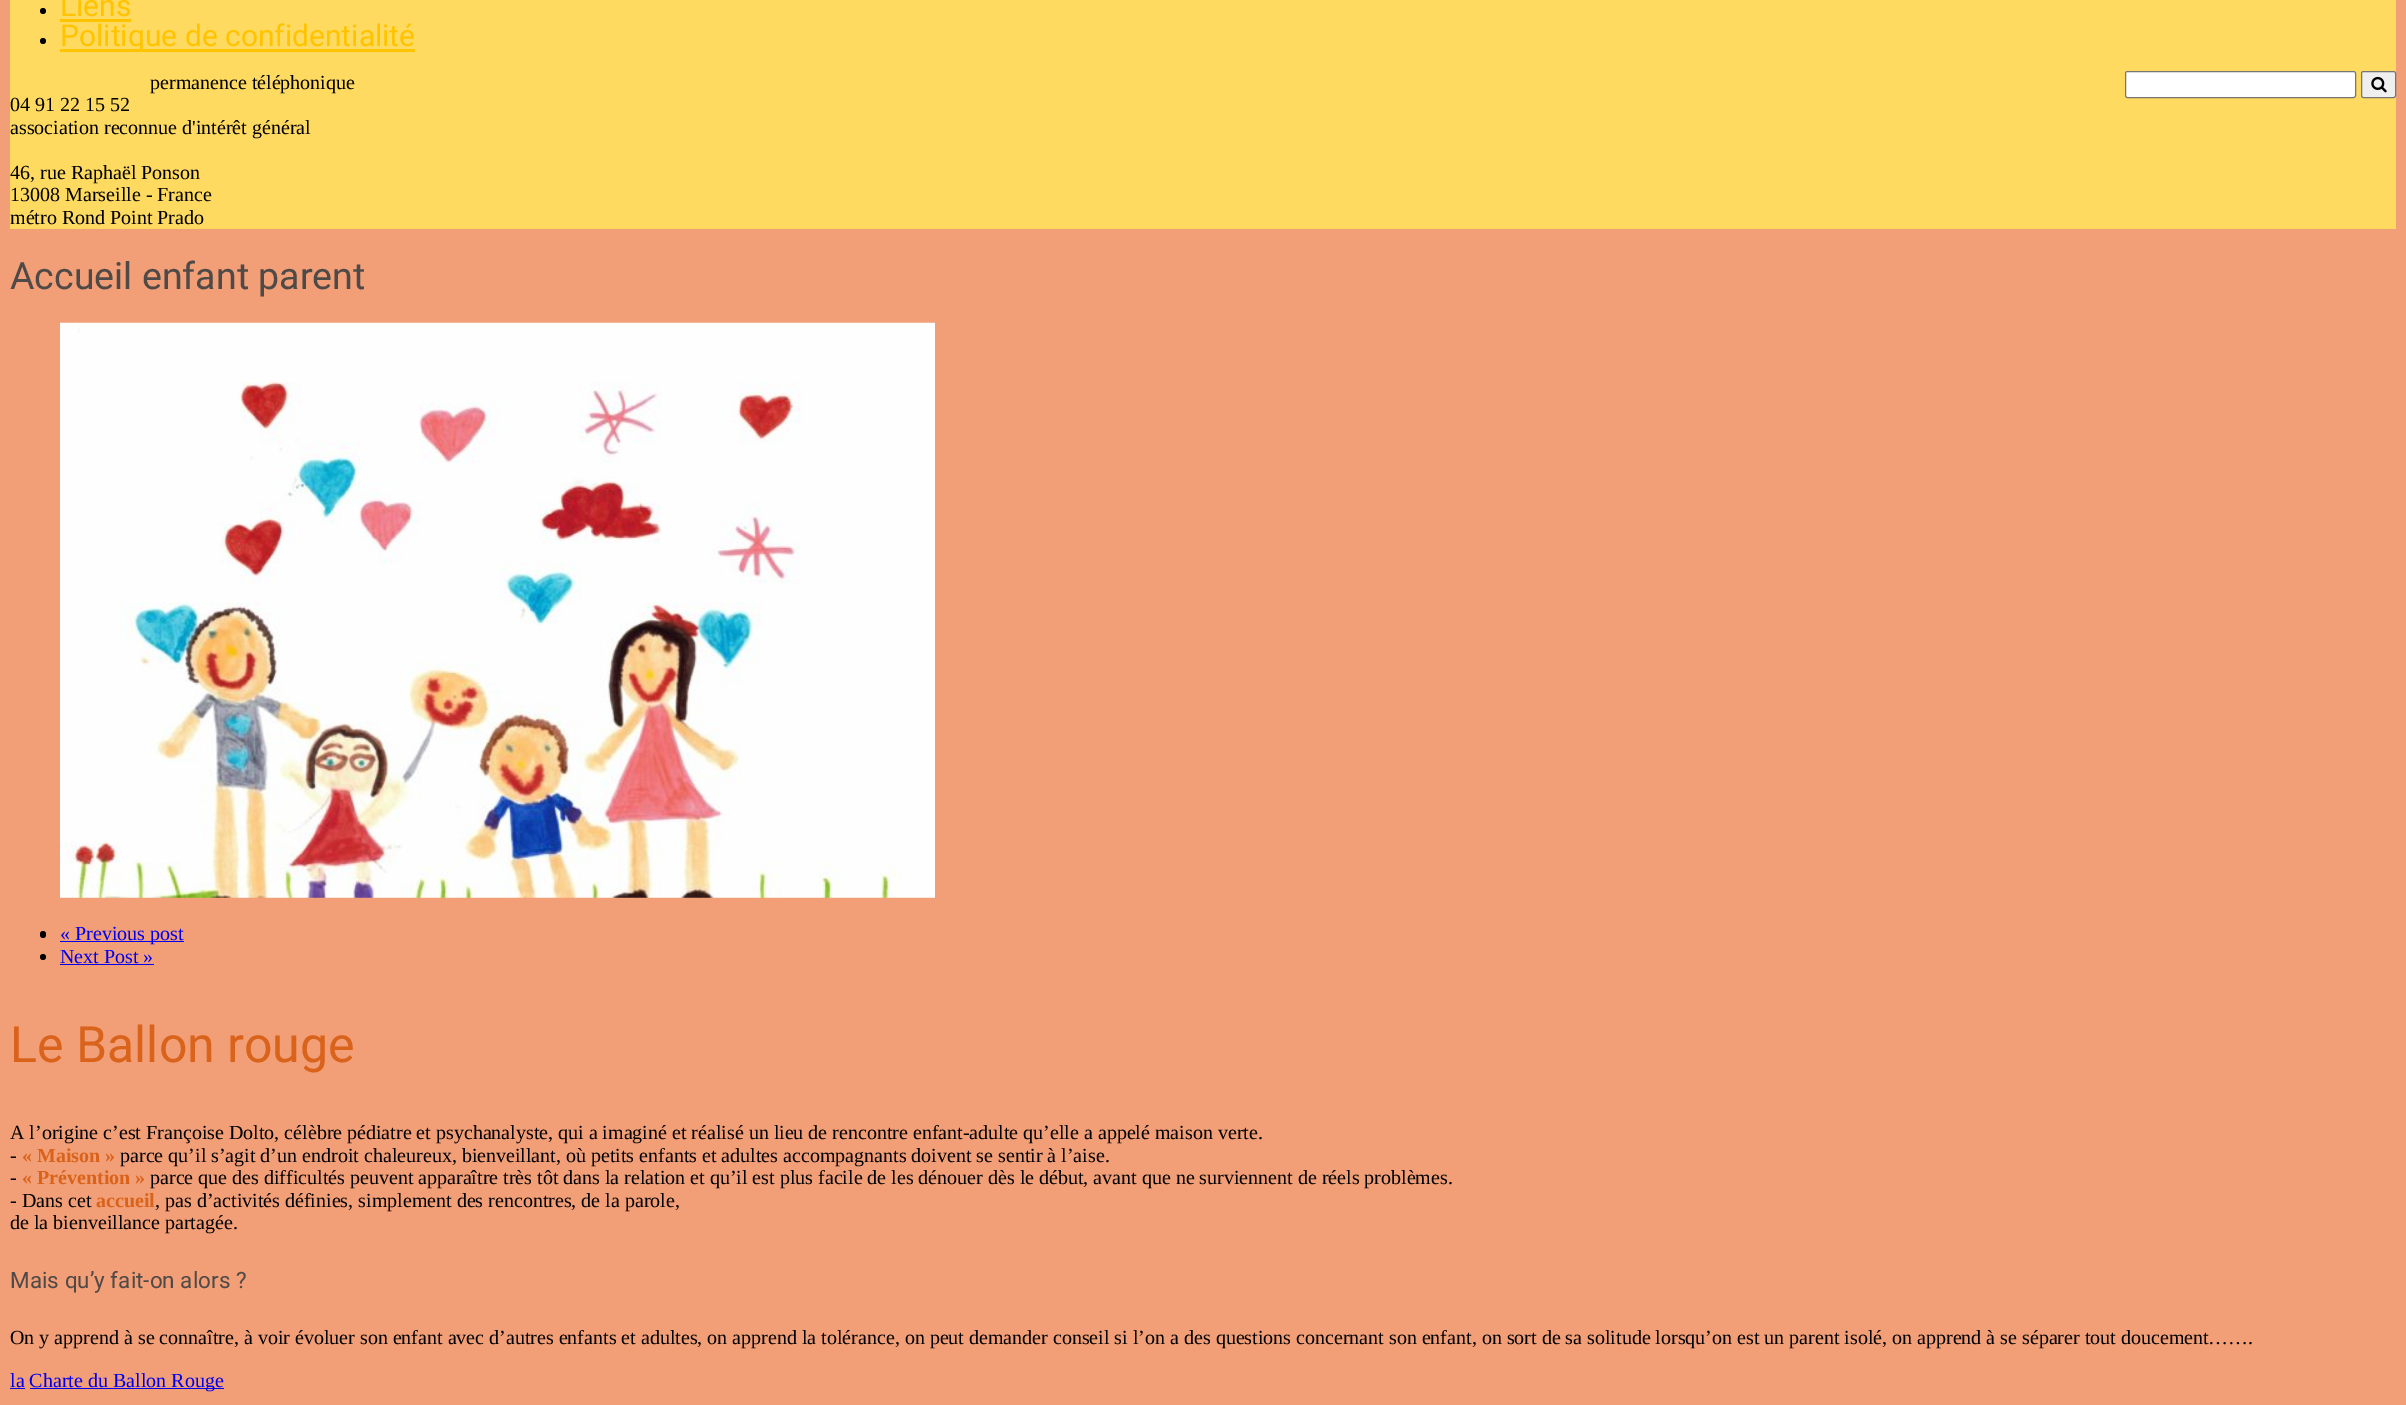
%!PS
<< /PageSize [2406 1405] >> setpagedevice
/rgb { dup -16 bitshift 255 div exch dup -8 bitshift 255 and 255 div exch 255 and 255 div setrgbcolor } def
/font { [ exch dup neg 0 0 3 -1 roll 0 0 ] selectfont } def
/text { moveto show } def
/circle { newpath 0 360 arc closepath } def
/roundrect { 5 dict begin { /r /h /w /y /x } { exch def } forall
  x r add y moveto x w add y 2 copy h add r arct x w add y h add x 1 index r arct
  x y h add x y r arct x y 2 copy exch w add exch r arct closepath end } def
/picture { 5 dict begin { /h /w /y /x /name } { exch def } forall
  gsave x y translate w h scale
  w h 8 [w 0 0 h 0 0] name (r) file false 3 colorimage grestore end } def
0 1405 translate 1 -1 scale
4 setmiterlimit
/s1 { /Roboto-Regular 30 font 16#FFC300 rgb } def
/s2 { /LiberationSerif-Regular 20 font 16#000000 rgb } def
/s3 { /Roboto-Regular 37.5 font 16#4F4A47 rgb } def
/s4 { /LiberationSerif-Regular 20 font 16#0000EE rgb } def
/s5 { /Roboto-Regular 50 font 16#D9631A rgb } def
/s6 { /LiberationSerif-Bold 20 font 16#D9631A rgb } def
/s7 { /Roboto-Regular 22.5 font 16#4F4A47 rgb } def
16#F29E77 rgb
0 0 2406 1405 rectfill
16#FFDA60 rgb
10 0 2386 229 rectfill
16#000000 rgb
43 11 3 circle fill
s1
(Liens) 60 16 text
60 19 71 3 rectfill
16#000000 rgb
43 41 3 circle fill
16#FFC300 rgb
60 49 355 3 rectfill
(Politique de confidentialité) 60 46 text
16#FFFFFF rgb
2125.5 71.5 230 26 2 roundrect gsave fill grestore
16#767676 rgb
stroke
16#EFEFEF rgb
2361.5 71.5 34 26 2 roundrect gsave fill grestore
16#767676 rgb
stroke
(pic1.raw) 2371 76 16 17 picture
s2
(permanence téléphonique) 150 89 text
(04 91 22 15 52) 10 111 text
(association reconnue d'intérêt général) 10 134 text
(46, rue Raphaël Ponson) 10 179 text
(13008 Marseille - France) 10 201 text
(métro Rond Point Prado) 10 224 text
s3
(Accueil enfant parent) 10 289 text
(pic2.raw) 60 322 875 576 picture
16#000000 rgb
40 931 6 7 3 roundrect fill
16#0000EE rgb
60 941 124 1 rectfill
s4
(« Previous post) 60 940 text
16#000000 rgb
43 957 3 circle fill
s4
(Next Post ») 60 963 text
60 964 94 1 rectfill
s5
(Le Ballon rouge) 10 1062 text
s2
(A l’origine c’est Françoise Dolto, célèbre pédiatre et psychanalyste, qui a imaginé et réalisé un lieu de rencontre enfant-adulte qu’elle a appelé maison verte.) 10 1139 text
(-) 10 1162 text
s6
(« Maison ») 22 1162 text
s2
(parce qu’il s’agit d’un endroit chaleureux, bienveillant, où petits enfants et adultes accompagnants doivent se sentir à l’aise.) 120 1162 text
(-) 10 1184 text
s6
(« Prévention ») 22 1184 text
s2
(parce que des difficultés peuvent apparaître très tôt dans la relation et qu’il est plus facile de les dénouer dès le début, avant que ne surviennent de réels problèmes.) 150 1184 text
(- Dans cet) 10 1207 text
s6
(accueil) 96 1207 text
s2
(, pas d’activités définies, simplement des rencontres, de la parole,) 155 1207 text
(de la bienveillance partagée.) 10 1229 text
s7
(Mais qu’y fait-on alors ?) 10 1288 text
s2
(On y apprend à se connaître, à voir évoluer son enfant avec d’autres enfants et adultes, on apprend la tolérance, on peut demander conseil si l’on a des questions concernant son enfant, on sort de sa solitude lorsqu’on est un parent isolé, on apprend à se séparer tout doucement…….) 10 1344 text
s4
(la Charte) 10 1387 text
10 1388 15 1 rectfill
30 1388 194 1 rectfill
(du Ballon Rouge) 88 1387 text
showpage
